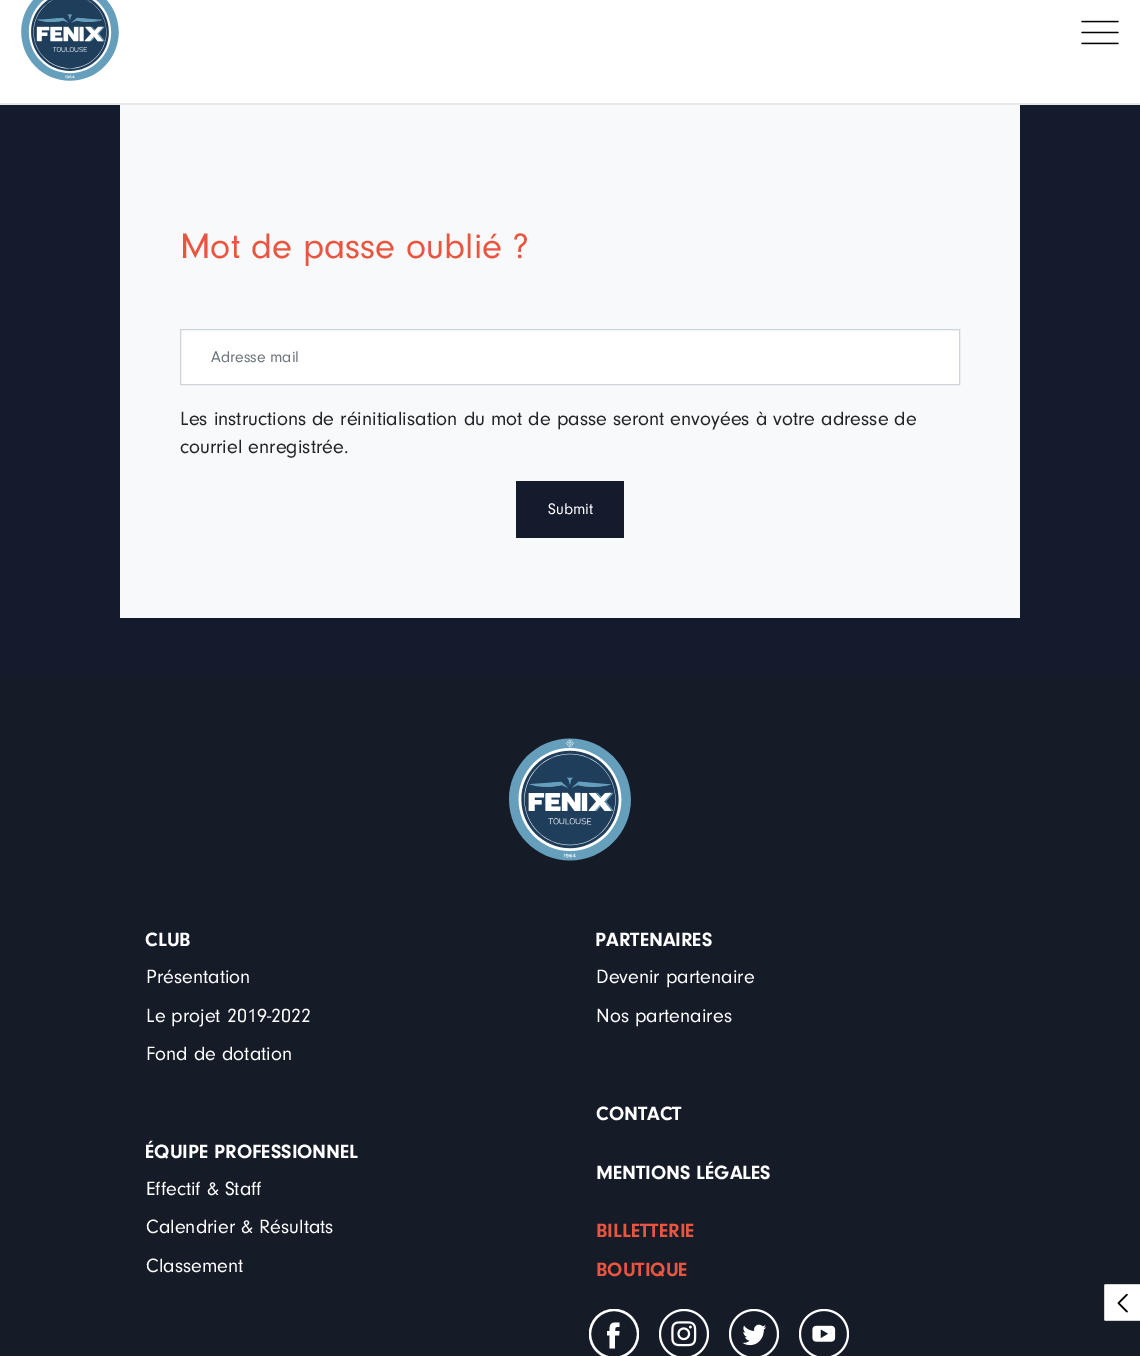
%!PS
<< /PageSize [1140 1356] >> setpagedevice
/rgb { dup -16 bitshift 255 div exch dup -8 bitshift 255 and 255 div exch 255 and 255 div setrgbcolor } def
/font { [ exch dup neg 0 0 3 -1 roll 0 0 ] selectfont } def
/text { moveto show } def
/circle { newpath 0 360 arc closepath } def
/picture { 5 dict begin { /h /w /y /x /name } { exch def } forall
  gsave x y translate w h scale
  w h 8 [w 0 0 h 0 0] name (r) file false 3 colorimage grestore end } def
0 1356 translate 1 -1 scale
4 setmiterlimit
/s1 { /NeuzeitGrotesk-Regular 36.75 font 16#EA5540 rgb } def
/s2 { /NeuzeitGrotesk-Regular 16 font 16#6C757D rgb } def
/s3 { /NeuzeitGrotesk-Regular 20 font 16#212529 rgb } def
/s4 { /NeuzeitGrotesk-Regular 16 font 16#FFFFFF rgb } def
/s5 { /NeuzeitGrotesk-Bold 20 font 16#FFFFFF rgb } def
/s6 { /NeuzeitGrotesk-Regular 20 font 16#FFFFFF rgb } def
/s7 { /NeuzeitGrotesk-Bold 20 font 16#EA5540 rgb } def
16#FFFFFF rgb
0 0 1140 1356 rectfill
16#E8E8E8 rgb
0 103 1140 2 rectfill
(pic1.raw) 21 0 98 81 picture
(pic2.raw) 1081 20 38 25 picture
16#131B2D rgb
0 105 1140 573 rectfill
16#F8F9FA rgb
120 105 900 513 rectfill
s1
(Mot de passe oublié ?) 180 258 text
16#FFFFFF rgb
180.5 329.5 moveto 959.5 329.5 lineto 959.5 384.5 lineto 180.5 384.5 lineto closepath gsave fill grestore
16#CED4DA rgb
stroke
s2
(Adresse mail) 211 362 text
s3
(Les instructions de réinitialisation du mot de passe seront envoyées à votre adresse de) 180 425 text
(courriel enregistrée.) 180 453 text
16#131B2D rgb
516 481 108 57 rectfill
s4
(Submit) 548 514 text
16#161B28 rgb
0 678 1140 678 rectfill
16#FFFFFF rgb
1106.5 1284 moveto 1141 1284 lineto 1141 1321 lineto 1106.5 1321 lineto 1105 1321 1104 1320 1104 1318.5 curveto 1104 1286.5 lineto 1104 1285 1105 1284 1106.5 1284 curveto closepath fill
(pic3.raw) 1117 1294 11 19 picture
16#D3D3D3 rgb
1105 1284 35 1 rectfill
1105 1320 35 1 rectfill
1104 1285 1 35 rectfill
(pic4.raw) 509 738 122 123 picture
s5
(CLUB) 145 946 text
s6
(Présentation) 146 983 text
(Le projet 2019-2022) 146 1022 text
(Fond de dotation) 146 1060 text
s5
(ÉQUIPE PROFESSIONNEL) 145 1158 text
s6
(Effectif & Staff) 146 1195 text
(Calendrier & Résultats) 146 1233 text
(Classement) 146 1272 text
s5
(PARTENAIRES) 595 946 text
s6
(Devenir partenaire) 596 983 text
(Nos partenaires) 596 1022 text
s5
(CONTACT) 596 1120 text
(MENTIONS LÉGALES) 596 1179 text
s7
(BILLETTERIE) 596 1237 text
(BOUTIQUE) 596 1276 text
gsave
589 1309 50 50 rectclip
16#FFFFFF rgb
2.3 setlinewidth
614 1334 24 circle stroke
grestore
16#FFFFFF rgb
615 1348.5 moveto 609.5 1348.5 lineto 609.5 1335.5 lineto 607 1335.5 lineto 607 1331 lineto 609.5 1331 lineto 609.5 1322.5 611.5 1322.5 619.5 1322.5 curveto 619.5 1327 lineto 615 1327 615.5 1326.5 615 1331 curveto 619.5 1331 lineto 619 1335.5 lineto 615 1335.5 lineto closepath eofill
(pic5.raw) 659 1309 50 47 picture
(pic6.raw) 729 1309 50 47 picture
(pic7.raw) 799 1309 50 47 picture
showpage
